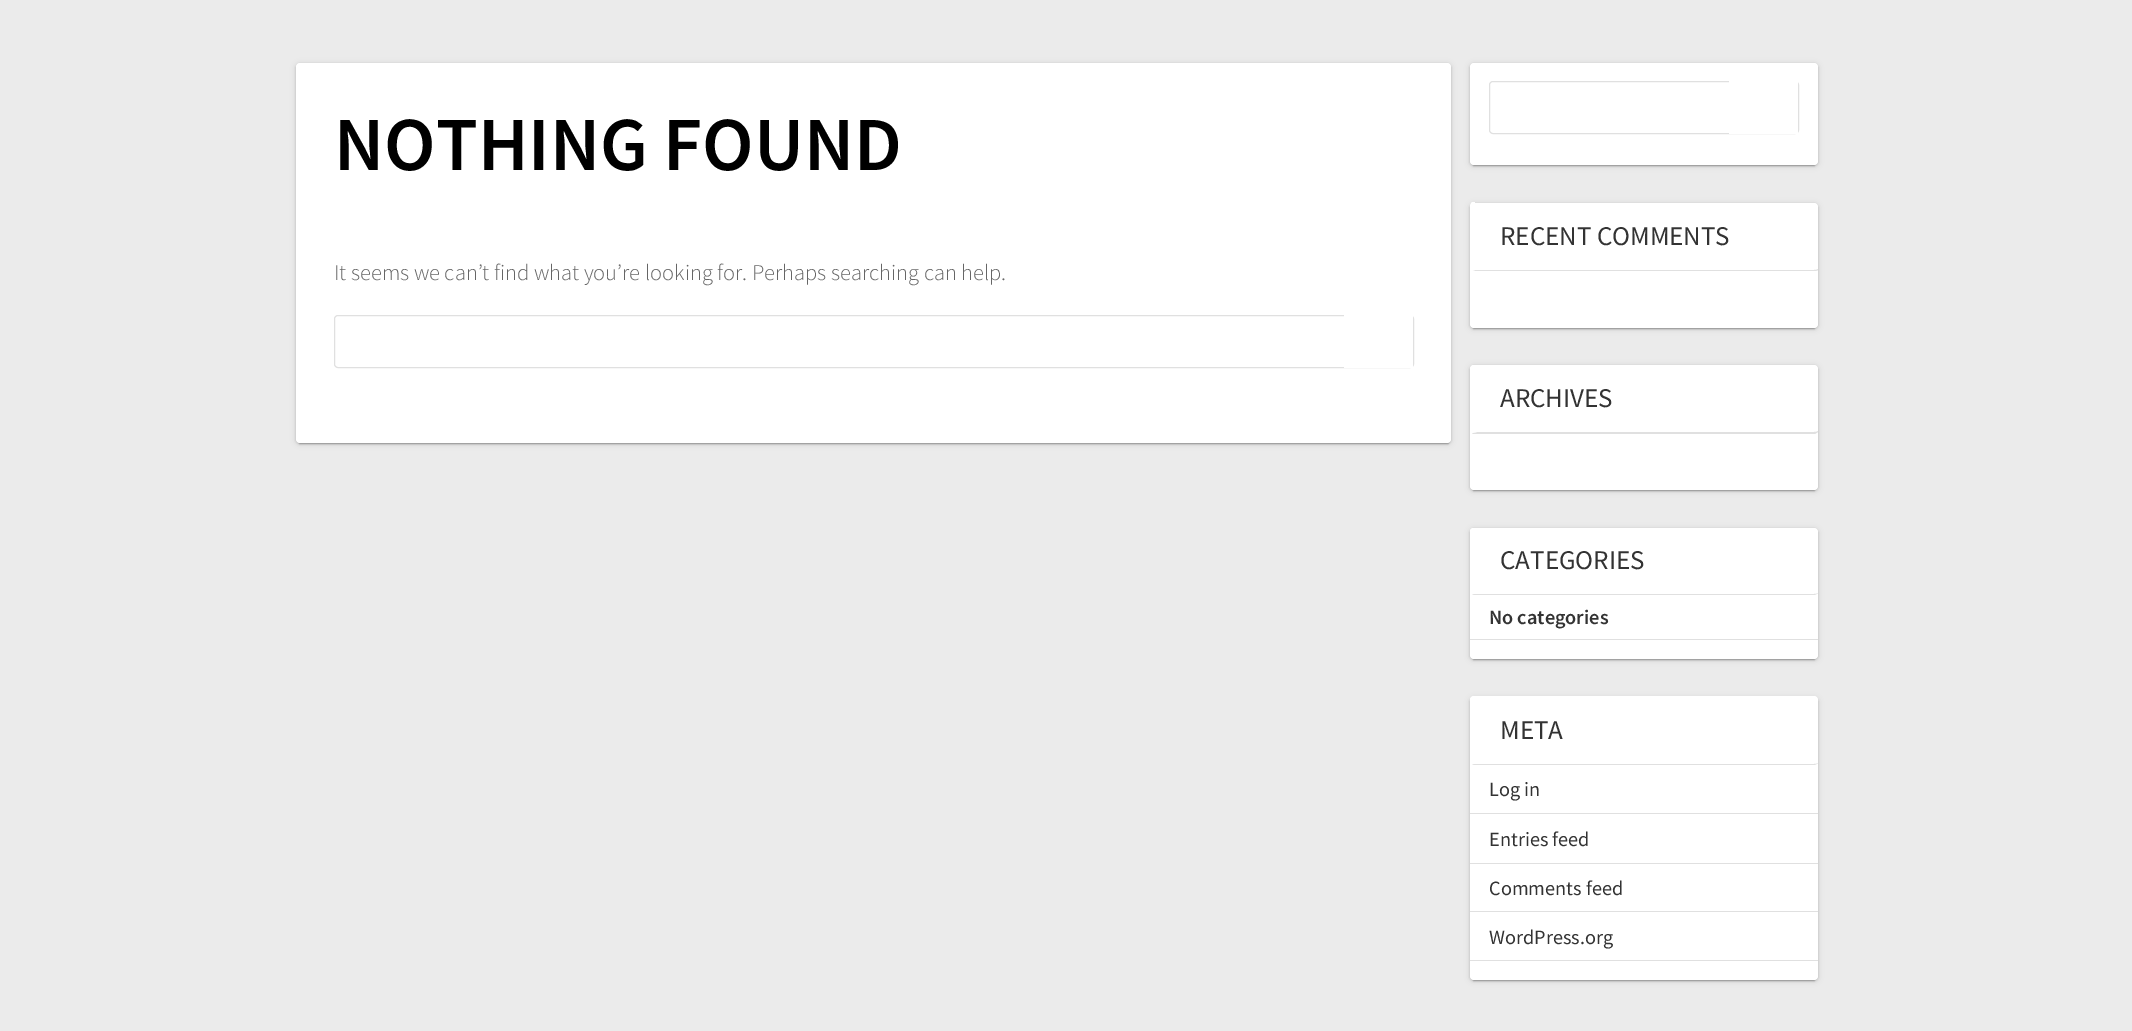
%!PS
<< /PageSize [2132 1031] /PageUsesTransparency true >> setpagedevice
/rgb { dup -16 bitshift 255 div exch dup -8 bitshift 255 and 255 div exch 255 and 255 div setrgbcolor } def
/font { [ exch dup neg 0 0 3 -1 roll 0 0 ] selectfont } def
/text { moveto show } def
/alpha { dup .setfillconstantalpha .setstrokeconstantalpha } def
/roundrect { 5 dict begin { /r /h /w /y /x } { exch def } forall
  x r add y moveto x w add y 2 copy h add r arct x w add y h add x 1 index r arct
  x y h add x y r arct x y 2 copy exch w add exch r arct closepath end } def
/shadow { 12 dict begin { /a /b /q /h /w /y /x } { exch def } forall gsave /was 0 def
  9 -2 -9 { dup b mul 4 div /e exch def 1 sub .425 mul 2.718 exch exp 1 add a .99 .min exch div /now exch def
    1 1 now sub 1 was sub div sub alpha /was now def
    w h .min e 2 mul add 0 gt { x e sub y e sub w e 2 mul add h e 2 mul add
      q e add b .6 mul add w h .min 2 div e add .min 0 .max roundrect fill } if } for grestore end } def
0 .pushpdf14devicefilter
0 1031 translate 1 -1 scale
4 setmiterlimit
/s1 { /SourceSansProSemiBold-SemiBold 76.5 font 16#000000 rgb } def
/s2 { /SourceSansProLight-Light 22.5 font 16#666666 rgb } def
/s3 { /SourceSansPro-Regular 27 font 16#333333 rgb } def
/s4 { /SourceSansProSemiBold-SemiBold 20.25 font 16#333333 rgb } def
/s5 { /SourceSansPro-Regular 20.25 font 16#333333 rgb } def
16#EBEBEB rgb
0 0 2132 1031 rectfill
16#000000 rgb
296 64 1155 380 4 3 0.12 shadow
299 69 1150 375 1 0.5 0.2 shadow
296 64 1155 380 4 1 0.14 shadow
16#FFFFFF rgb
296 63 1155 380 4 roundrect fill
s1
(NOTHING FOUND) 334 170 text
s2
(It seems we can’t find what you’re looking for. Perhaps searching can help.) 334 280 text
16#E0E0E0 rgb
334.5 315.5 1079 52 3.5 roundrect stroke
16#FFFFFF rgb
1344 315 69 53 rectfill
16#000000 rgb
1470 64 348 102 4 3 0.12 shadow
1473 69 342 97 1 0.5 0.2 shadow
1470 64 348 102 4 1 0.14 shadow
16#FFFFFF rgb
1470 63 348 102 4 roundrect fill
16#E0E0E0 rgb
1489.5 81.5 309 52 3.5 roundrect stroke
16#FFFFFF rgb
1729 81 69 53 rectfill
16#000000 rgb
1470 204 348 125 4 3 0.12 shadow
1473 209 342 120 1 0.5 0.2 shadow
1470 204 348 125 4 1 0.14 shadow
16#FFFFFF rgb
1470 203 348 125 4 roundrect fill
16#E0E0E0 rgb
1818 270 moveto 1817 271 1815 271 1814 271 curveto 1472 271 lineto 1475 270 lineto 1814 270 lineto 1815 270 1817 270 1818 269 curveto closepath fill
16#FFFFFF rgb
1470 206 moveto 1470 269 lineto 1472 271 lineto 1475 270 lineto 1475 202 lineto 1472 202 lineto 1471 203 1470 205 1470 206 curveto closepath fill
s3
(RECENT COMMENTS) 1500 245 text
16#000000 rgb
1470 366 348 125 4 3 0.12 shadow
1473 371 342 120 1 0.5 0.2 shadow
1470 366 348 125 4 1 0.14 shadow
16#FFFFFF rgb
1470 365 348 125 4 roundrect fill
16#E0E0E0 rgb
1473 434 moveto 1472 433 lineto 1477 432 lineto 1814 432 lineto 1815 432 1817 432 1818 431 curveto 1818 432 lineto 1815 434 lineto closepath fill
16#FFFFFF rgb
1474 365 moveto 1475 365 lineto 1475 432 lineto 1477 432 lineto 1472 433 lineto 1471 433 1470 431 1470 430 curveto 1470 369 lineto 1470 367 1472 365 1474 365 curveto closepath fill
s3
(ARCHIVES) 1500 407 text
16#000000 rgb
1470 529 348 131 4 3 0.12 shadow
1473 534 342 126 1 0.5 0.2 shadow
1470 529 348 131 4 1 0.14 shadow
16#FFFFFF rgb
1470 528 348 131 4 roundrect fill
16#E0E0E0 rgb
1474 595 moveto 1814 595 lineto 1815 595 1817 594 1818 593 curveto 1817 594 1815 594 1814 594 curveto 1475 594 lineto 1472 594 lineto closepath fill
16#FFFFFF rgb
1474 528 moveto 1475 528 lineto 1475 594 lineto 1472 594 lineto 1471 594 1470 592 1470 591 curveto 1470 531 lineto 1470 529 1472 528 1474 528 curveto closepath fill
s3
(CATEGORIES) 1500 569 text
16#E0E0E0 rgb
1470 639 348 1 rectfill
s4
(No categories) 1489 624 text
16#000000 rgb
1470 698 348 283 4 3 0.12 shadow
1473 703 342 278 1 0.5 0.2 shadow
1470 698 348 283 4 1 0.14 shadow
16#FFFFFF rgb
1470 696 348 284 4 roundrect fill
16#E0E0E0 rgb
1474 765 moveto 1814 765 lineto 1815 765 1817 764 1818 763 curveto 1817 764 1815 764 1814 764 curveto 1475 764 lineto 1472 764 lineto closepath fill
16#FFFFFF rgb
1470 700 moveto 1470 761 lineto 1470 762 1471 764 1472 764 curveto 1475 764 lineto 1475 696 lineto 1473 696 1470 697 1470 700 curveto closepath fill
s3
(META) 1500 739 text
16#E0E0E0 rgb
1470 813 348 1 rectfill
s5
(Log in) 1489 796 text
16#E0E0E0 rgb
1470 863 348 1 rectfill
s5
(Entries feed) 1489 846 text
16#E0E0E0 rgb
1470 911 348 1 rectfill
s5
(Comments feed) 1489 895 text
16#E0E0E0 rgb
1470 960 348 1 rectfill
s5
(WordPress.org) 1489 944 text
.poppdf14devicefilter showpage
